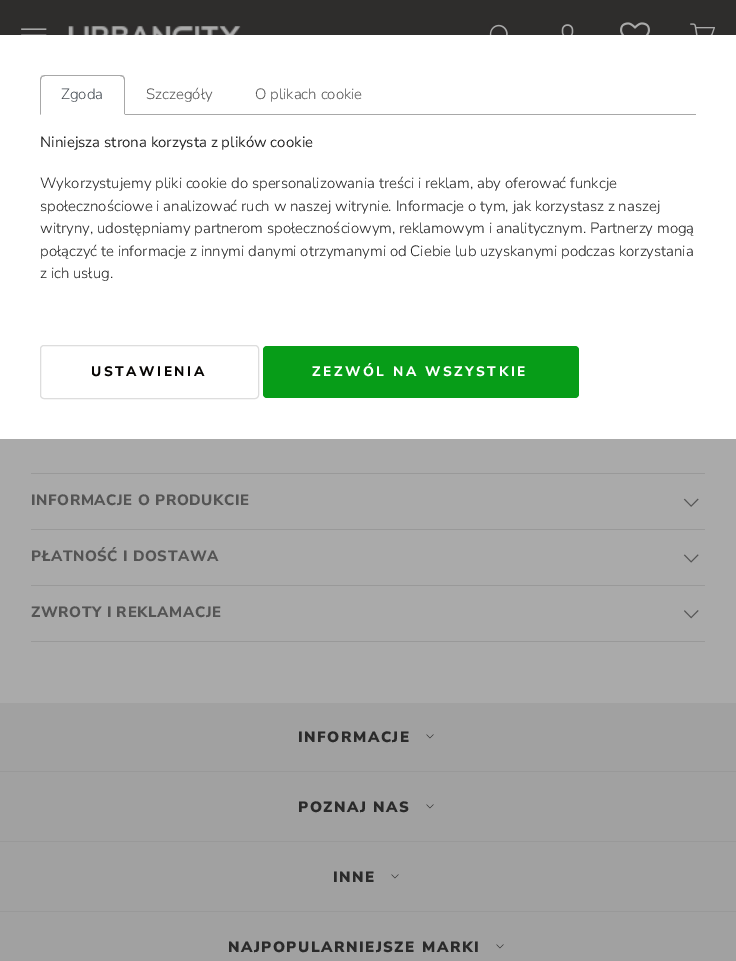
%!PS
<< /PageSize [736 961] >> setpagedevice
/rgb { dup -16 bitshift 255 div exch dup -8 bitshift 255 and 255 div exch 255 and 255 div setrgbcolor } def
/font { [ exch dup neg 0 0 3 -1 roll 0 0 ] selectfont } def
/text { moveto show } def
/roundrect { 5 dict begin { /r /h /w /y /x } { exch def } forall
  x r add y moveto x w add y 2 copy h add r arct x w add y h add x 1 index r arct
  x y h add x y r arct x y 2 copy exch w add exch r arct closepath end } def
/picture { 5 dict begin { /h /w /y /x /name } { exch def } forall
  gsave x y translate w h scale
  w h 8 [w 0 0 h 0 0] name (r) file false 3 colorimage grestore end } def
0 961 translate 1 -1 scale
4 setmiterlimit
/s1 { /NunitoSans-Light 15 font 16#495057 rgb } def
/s2 { /NunitoSans-Light 15 font 16#545454 rgb } def
/s3 { /NunitoSans-Regular 15 font 16#232323 rgb } def
/s4 { /NunitoSans-Light 15 font 16#232323 rgb } def
16#AAAAAA rgb
0 0 736 961 rectfill
16#FFFFFF rgb
0 35 736 404 rectfill
16#A8A8A8 rgb
125 114 571 1 rectfill
45 75 moveto 44 75 42 76 41 76 curveto 42 77 lineto 45 76 lineto 120 76 lineto 123 77 lineto 124 76 lineto 123 76 122 75 120 75 curveto closepath fill
125 115 moveto 125 80 lineto 125 78.5 124.5 77 123.5 76.5 curveto 123 77 lineto 123.5 78 124 79 124 80 curveto 124 114 lineto closepath fill
16#FFFFFF rgb
125 115 moveto 124 114 lineto 41 114 lineto 40 115 lineto closepath fill
16#A8A8A8 rgb
40 115 moveto 41 114 lineto 41 80 lineto 41 79 41.5 78 42 77 curveto 41.5 76.5 lineto 40.5 77 40 78.5 40 80 curveto closepath fill
s1
(Zgoda) 61 99 text
s2
(Szczegóły) 146 99 text
(O plikach cookie) 255 99 text
s3
(Niniejsza strona korzysta z plików cookie) 40 147 text
s4
(Wykorzystujemy pliki cookie do spersonalizowania treści i reklam, aby oferować funkcje) 40 188 text
(społecznościowe i analizować ruch w naszej witrynie. Informacje o tym, jak korzystasz z naszej) 40 211 text
(witryny, udostępniamy partnerom społecznościowym, reklamowym i analitycznym. Partnerzy mogą) 40 233 text
(połączyć te informacje z innymi danymi otrzymanymi od Ciebie lub uzyskanymi podczas korzystania) 40 256 text
(z ich usług.) 40 278 text
16#DDDDDD rgb
40.5 345.5 218 53 3.5 roundrect stroke
/NunitoSans-ExtraBold 13.75 font
16#070503 rgb
91 376 moveto 2.5 0 (USTAWIENIA) ashow
16#079D18 rgb
263 346 316 52 4 roundrect fill
16#FFFFFF rgb
312 376 moveto 2.5 0 (ZEZWÓL NA WSZYSTKIE) ashow
16#2E2D2C rgb
0 0 736 35 rectfill
(pic1.raw) 21 28 26 7 picture
(pic2.raw) 68 26 173 9 picture
(pic3.raw) 489 24 19 11 picture
(pic4.raw) 561 24 13 11 picture
(pic5.raw) 620 22 30 13 picture
(pic6.raw) 690 23 25 12 picture
16#999999 rgb
31 473 674 1 rectfill
/NunitoSans-ExtraBold 15 font
16#545454 rgb
31 505 moveto 0.6 0 (INFORMACJE O PRODUKCIE) ashow
(pic7.raw) 683 498 16 9 picture
16#999999 rgb
31 529 674 1 rectfill
16#545454 rgb
31 561 moveto 0.6 0 (PŁATNOŚĆ I DOSTAWA) ashow
(pic8.raw) 683 554 16 9 picture
16#999999 rgb
31 585 674 1 rectfill
31 641 674 1 rectfill
16#545454 rgb
31 617 moveto 0.6 0 (ZWROTY I REKLAMACJE) ashow
(pic9.raw) 684 610 15 9 picture
16#A1A1A1 rgb
0 703 736 258 rectfill
16#999999 rgb
0 771 736 1 rectfill
/NunitoSans-Black 15 font
16#2A2A2A rgb
298 742 moveto 1.5 0 (INFORMACJE) ashow
(pic10.raw) 426 734 8 5 picture
16#999999 rgb
0 841 736 1 rectfill
16#2A2A2A rgb
298 812 moveto 1.5 0 (POZNAJ NAS) ashow
(pic10.raw) 426 804 8 5 picture
16#999999 rgb
0 911 736 1 rectfill
16#2A2A2A rgb
333 882 moveto 1.5 0 (INNE) ashow
(pic10.raw) 391 874 8 5 picture
228 952 moveto 1.5 0 (NAJPOPULARNIEJSZE MARKI) ashow
(pic10.raw) 496 944 8 5 picture
showpage
